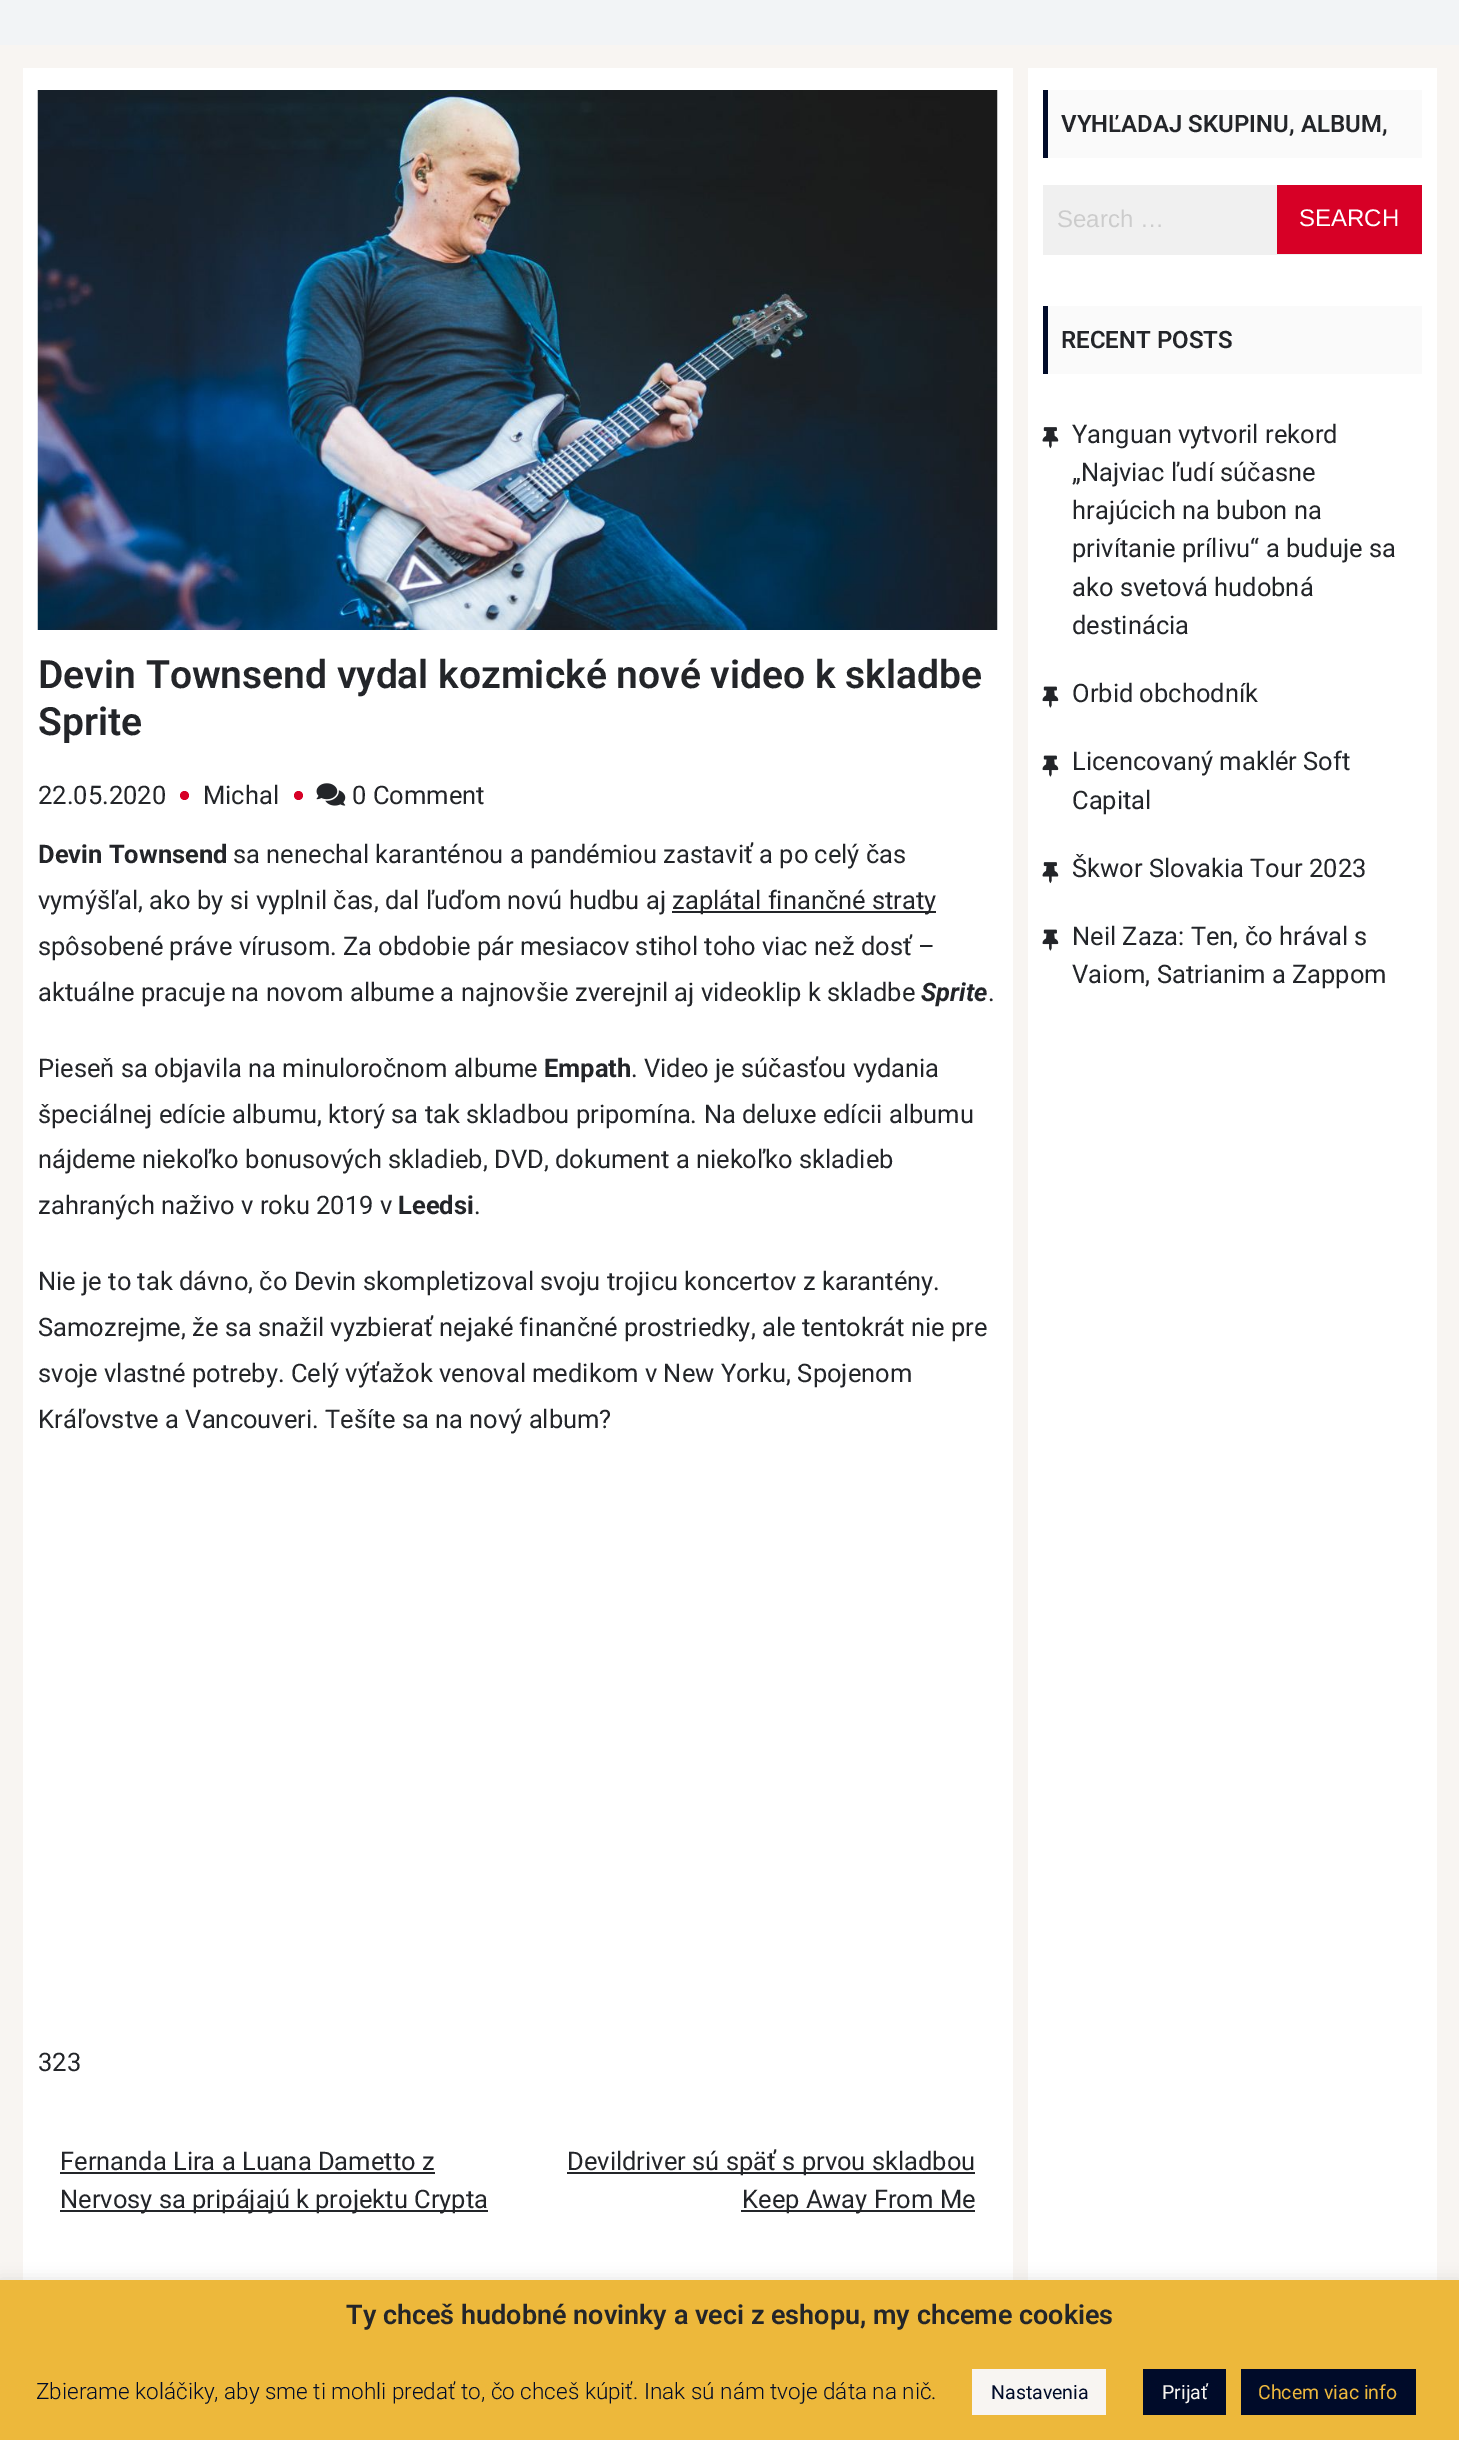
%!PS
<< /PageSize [1459 2440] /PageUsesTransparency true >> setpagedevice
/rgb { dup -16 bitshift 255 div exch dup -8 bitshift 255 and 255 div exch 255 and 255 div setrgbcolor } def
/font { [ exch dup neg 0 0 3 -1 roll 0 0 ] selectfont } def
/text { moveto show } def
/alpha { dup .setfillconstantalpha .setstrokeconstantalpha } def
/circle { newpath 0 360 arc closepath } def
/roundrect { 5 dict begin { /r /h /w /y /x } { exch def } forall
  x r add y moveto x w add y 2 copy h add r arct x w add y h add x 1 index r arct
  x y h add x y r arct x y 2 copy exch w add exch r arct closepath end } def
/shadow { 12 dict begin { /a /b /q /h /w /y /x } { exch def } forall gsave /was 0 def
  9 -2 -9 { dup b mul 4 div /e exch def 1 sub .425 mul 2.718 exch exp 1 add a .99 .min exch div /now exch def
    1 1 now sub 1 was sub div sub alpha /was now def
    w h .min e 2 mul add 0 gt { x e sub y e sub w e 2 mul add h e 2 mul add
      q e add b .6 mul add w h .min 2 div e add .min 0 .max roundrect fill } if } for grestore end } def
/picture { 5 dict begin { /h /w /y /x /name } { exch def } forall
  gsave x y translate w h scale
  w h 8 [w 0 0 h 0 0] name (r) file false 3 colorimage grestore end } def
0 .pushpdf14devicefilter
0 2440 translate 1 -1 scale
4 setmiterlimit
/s1 { /Roboto-SemiBold 24 font 16#232529 rgb } def
/s2 { /LiberationSans-Regular 24 font 16#CCCCCC rgb } def
/s3 { /LiberationSans-Regular 24 font 16#FFFFFF rgb } def
/s4 { /Roboto-Regular 25.5 font 16#232529 rgb } def
/s5 { /Roboto-SemiBold 39 font 16#232529 rgb } def
/s6 { /Roboto-Bold 25.5 font 16#232529 rgb } def
/s7 { /Roboto-BoldItalic 25.5 font 16#232529 rgb } def
/s8 { /Roboto-SemiBold 27 font 16#232529 rgb } def
/s9 { /Roboto-Light 22.5 font 16#000B29 rgb } def
/s10 { /Roboto-Regular 19.5 font 16#000B29 rgb } def
/s11 { /Roboto-Regular 19.5 font 16#F8F5F2 rgb } def
/s12 { /Roboto-Regular 19.5 font 16#EDB83D rgb } def
16#F8F5F2 rgb
0 0 1459 2440 rectfill
16#F2F4F6 rgb
0 0 1459 45 rectfill
16#FFFFFF rgb
1028 68 409 2212 rectfill
16#FAFAFA rgb
1048 90 374 68 rectfill
16#000B29 rgb
1043 90 5 68 rectfill
s1
(VYHĽADAJ SKUPINU, ALBUM,) 1061 132 text
16#F0F0F0 rgb
1043 185 379 70 rectfill
s2
(Search …) 1057 227 text
16#D70026 rgb
1277 185 145 69 rectfill
s3
(SEARCH) 1299 226 text
16#FAFAFA rgb
1048 306 374 68 rectfill
16#000B29 rgb
1043 306 5 68 rectfill
s1
(RECENT POSTS) 1061 348 text
(pic1.raw) 1042 427 17 22 picture
s4
(Yanguan vytvoril rekord) 1072 443 text
(„Najviac ľudí súčasne) 1072 481 text
(hrajúcich na bubon na) 1072 519 text
(privítanie prílivu“ a buduje sa) 1072 557 text
(ako svetová hudobná) 1072 596 text
(destinácia) 1072 634 text
(pic2.raw) 1042 686 17 22 picture
(Orbid obchodník) 1072 702 text
(pic2.raw) 1042 755 17 22 picture
(Licencovaný maklér Soft) 1072 770 text
(Capital) 1072 809 text
(pic1.raw) 1042 862 17 22 picture
(Škwor Slovakia Tour 2023) 1072 877 text
(pic2.raw) 1042 929 17 22 picture
(Neil Zaza: Ten, čo hrával s) 1072 945 text
(Vaiom, Satrianim a Zappom) 1072 983 text
16#FFFFFF rgb
23 68 990 2212 rectfill
(pic3.raw) 37 90 961 540 picture
s5
(Devin Townsend vydal kozmické nové video k skladbe) 38 688 text
(Sprite) 38 735 text
s4
(22.05.2020) 38 804 text
16#D70026 rgb
184.5 795.5 4.5 circle fill
s4
(Michal) 203 804 text
16#D70026 rgb
298.5 795.5 4.5 circle fill
(pic4.raw) 316 783 30 23 picture
s4
(0 Comment) 352 804 text
s6
(Devin Townsend) 38 863 text
s4
(sa nenechal karanténou a pandémiou zastaviť a po celý čas) 233 863 text
(vymýšľal, ako by si vyplnil čas, dal ľuďom novú hudbu aj) 38 909 text
672 911 264 2 rectfill
(zaplátal finančné straty) 672 909 text
(spôsobené práve vírusom. Za obdobie pár mesiacov stihol toho viac než dosť –) 38 955 text
(aktuálne pracuje na novom albume a najnovšie zverejnil aj videoklip k skladbe) 38 1001 text
s7
(Sprite) 921 1001 text
s4
(.) 988 1001 text
(Pieseň sa objavila na minuloročnom albume) 38 1077 text
s6
(Empath) 544 1077 text
s4
(. Video je súčasťou vydania) 631 1077 text
(špeciálnej edície albumu, ktorý sa tak skladbou pripomína. Na deluxe edícii albumu) 38 1123 text
(nájdeme niekoľko bonusových skladieb, DVD, dokument a niekoľko skladieb) 38 1168 text
(zahraných naživo v roku 2019 v) 38 1214 text
s6
(Leedsi) 398 1214 text
s4
(.) 474 1214 text
(Nie je to tak dávno, čo Devin skompletizoval svoju trojicu koncertov z karantény.) 38 1290 text
(Samozrejme, že sa snažil vyzbierať nejaké finančné prostriedky, ale tentokrát nie pre) 38 1336 text
(svoje vlastné potreby. Celý výťažok venoval medikom v New Yorku, Spojenom) 38 1382 text
(Kráľovstve a Vancouveri. Tešíte sa na nový album?) 38 1428 text
(323) 38 2071 text
(Fernanda Lira a Luana Dametto z) 60 2170 text
60 2172 375 2 rectfill
60 2210 428 2 rectfill
(Nervosy sa pripájajú k projektu Crypta) 60 2208 text
567 2172 408 2 rectfill
(Devildriver sú späť s prvou skladbou) 567 2170 text
741 2210 234 2 rectfill
(Keep Away From Me) 742 2208 text
16#ACABAB rgb
0 2279 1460 160 0 7.5 0.3 shadow
16#EDB83B rgb
0 2280 1459 160 rectfill
s8
(Ty chceš hudobné novinky a veci z eshopu, my chceme cookies) 346 2324 text
s9
(Zbierame koláčiky, aby sme ti mohli predať to, čo chceš kúpiť. Inak sú nám tvoje dáta na nič.) 36 2399 text
16#F8F5F2 rgb
972 2369 134 46 rectfill
s10
(Nastavenia) 991 2399 text
1143 2369 83 46 rectfill
s11
(Prijať) 1162 2399 text
16#000B29 rgb
1241 2369 175 46 rectfill
s12
(Chcem viac info) 1258 2399 text
.poppdf14devicefilter showpage
